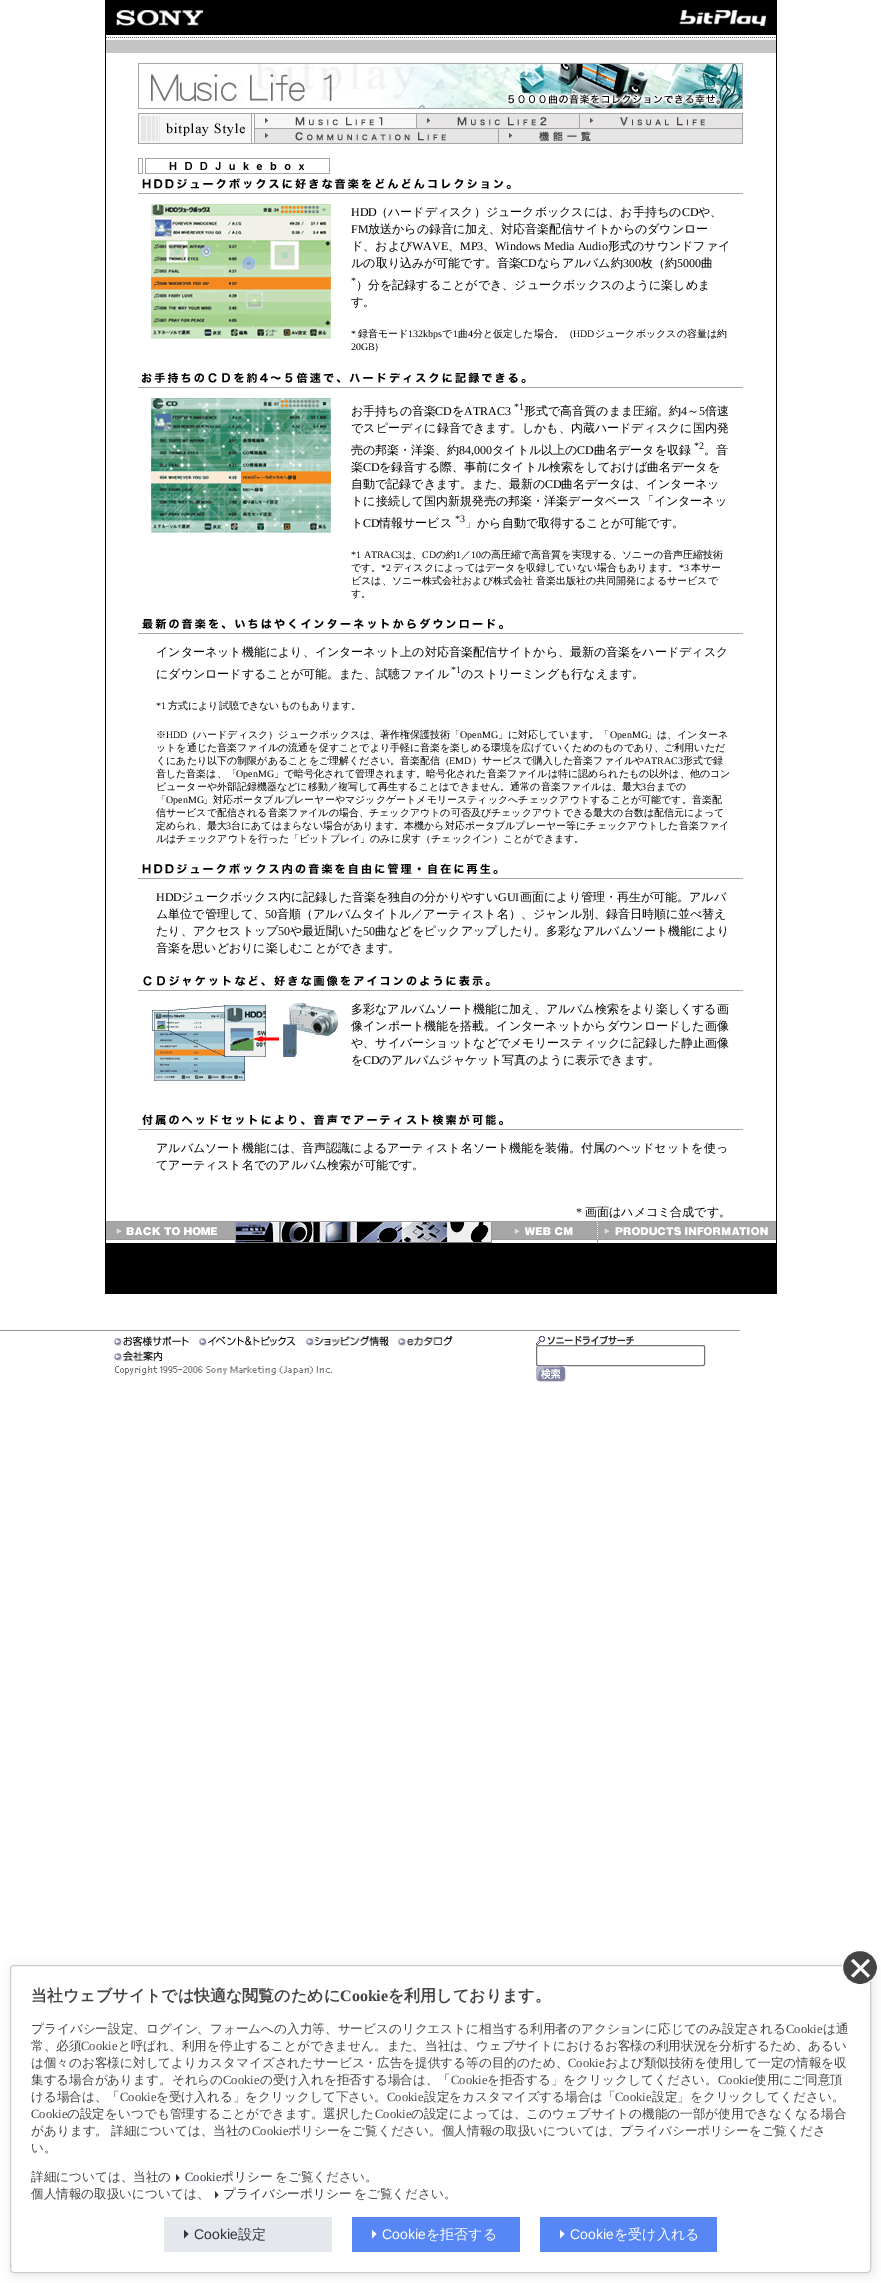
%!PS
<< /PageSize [881 2283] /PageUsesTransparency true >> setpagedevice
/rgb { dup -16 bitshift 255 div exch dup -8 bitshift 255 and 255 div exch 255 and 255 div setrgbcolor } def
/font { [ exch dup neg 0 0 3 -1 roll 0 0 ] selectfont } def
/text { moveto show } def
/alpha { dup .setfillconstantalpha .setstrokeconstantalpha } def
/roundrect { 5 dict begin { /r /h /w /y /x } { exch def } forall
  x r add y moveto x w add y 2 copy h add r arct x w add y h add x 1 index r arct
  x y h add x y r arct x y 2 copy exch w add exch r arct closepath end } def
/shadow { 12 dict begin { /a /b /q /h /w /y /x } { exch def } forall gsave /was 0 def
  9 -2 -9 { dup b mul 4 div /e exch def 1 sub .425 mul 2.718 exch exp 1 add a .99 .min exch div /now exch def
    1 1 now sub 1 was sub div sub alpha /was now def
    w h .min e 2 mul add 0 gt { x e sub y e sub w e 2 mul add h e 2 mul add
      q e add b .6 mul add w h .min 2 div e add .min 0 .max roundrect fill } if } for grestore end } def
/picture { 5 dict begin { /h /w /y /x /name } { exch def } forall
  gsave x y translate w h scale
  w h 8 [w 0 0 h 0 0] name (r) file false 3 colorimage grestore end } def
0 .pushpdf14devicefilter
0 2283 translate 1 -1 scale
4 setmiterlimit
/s1 { /LiberationSerif-Regular 12 font 16#000000 rgb } def
/s2 { /WenQuanYiZenHei-Medium 12 font 16#000000 rgb } def
/s3 { /LiberationSerif-Regular 10 font 16#000000 rgb } def
/s4 { /WenQuanYiZenHei-Medium 10 font 16#000000 rgb } def
/s5 { /WenQuanYiZenHei-Bold 16 font 16#444444 rgb } def
/s6 { /LiberationSerif-Bold 16 font 16#444444 rgb } def
/s7 { /WenQuanYiZenHei-Medium 12.6 font 16#444444 rgb } def
/s8 { /LiberationSerif-Regular 12.6 font 16#444444 rgb } def
/s9 { /LiberationSerif-Regular 12.6 font 16#2F353D rgb } def
/s10 { /WenQuanYiZenHei-Medium 12.6 font 16#2F353D rgb } def
/s11 { /LiberationSans-Regular 14 font 16#2F353D rgb } def
/s12 { /WenQuanYiZenHei-Medium 14 font 16#2F353D rgb } def
/s13 { /LiberationSans-Regular 14 font 16#FFFFFF rgb } def
/s14 { /WenQuanYiZenHei-Medium 14 font 16#FFFFFF rgb } def
16#FFFFFF rgb
0 0 881 2283 rectfill
16#000000 rgb
105 0 672 35 rectfill
(pic1.raw) 116 10 87 16 picture
(pic2.raw) 679 10 87 16 picture
105 35 1 1208 rectfill
(pic3.raw) 106 37 669 1 picture
776 35 1 1208 rectfill
16#C4C4C4 rgb
106 40 670 13 rectfill
(pic4.raw) 138 63 605 46 picture
(pic5.raw) 138 113 116 31 picture
(pic6.raw) 254 113 162 15 picture
(pic7.raw) 416 113 163 15 picture
(pic8.raw) 579 113 164 15 picture
(pic9.raw) 254 128 244 16 picture
(pic10.raw) 498 128 245 16 picture
(pic11.raw) 138 158 192 16 picture
(pic12.raw) 142 178 369 11 picture
16#A5A5A5 rgb
138 193 605 1 rectfill
(pic13.raw) 151 204 180 135 picture
s1
(HDD) 351 216 text
s2
(（ハードディスク）ジュークボックスには、お手持ちの) 376 216 text
s1
(CD) 682 216 text
s2
(や、) 698 216 text
s1
(FM) 351 233 text
s2
(放送からの録音に加え、対応音楽配信サイトからのダウンロー) 368 233 text
(ド、および) 351 250 text
s1
(WAVE) 412 250 text
s2
(、) 448 250 text
s1
(MP3) 460 250 text
s2
(、) 483 250 text
s1
(Windows Media Audio) 495 250 text
s2
(形式のサウンドファイ) 608 250 text
(ルの取り込みが可能です。音楽) 351 267 text
s1
(CD) 520 267 text
s2
(ならアルバム約) 537 267 text
s1
(300) 623 267 text
s2
(枚（約) 641 267 text
s1
(5000) 677 267 text
s2
(曲) 701 267 text
s3
(*) 351 284 text
s2
(）分を記録することができ、ジュークボックスのように楽しめま) 356 289 text
(す。) 351 306 text
s3
(*) 351 337 text
s4
(録音モード) 358 337 text
s3
(132kbps) 408 337 text
s4
(で) 442 337 text
s3
(1) 453 337 text
s4
(曲) 458 337 text
s3
(4) 468 337 text
s4
(分と仮定した場合。（) 473 337 text
s3
(HDD) 573 337 text
s4
(ジュークボックスの容量は約) 595 337 text
s3
(20GB) 351 350 text
s4
(）) 374 350 text
(pic14.raw) 141 372 385 11 picture
16#A5A5A5 rgb
138 387 605 1 rectfill
(pic15.raw) 151 398 180 135 picture
s2
(お手持ちの音楽) 351 415 text
s1
(CD) 435 415 text
s2
(を) 452 415 text
s1
(ATRAC3) 464 415 text
s3
(*1) 514 410 text
s2
(形式で高音質のまま圧縮。約) 524 415 text
s1
(4) 681 415 text
s2
(～) 687 415 text
s1
(5) 699 415 text
s2
(倍速) 705 415 text
(でスピーディに録音できます。しかも、内蔵ハードディスクに国内発) 351 432 text
(売の邦楽・洋楽、約) 351 454 text
s1
(84,000) 459 454 text
s2
(タイトル以上の) 492 454 text
s1
(CD) 577 454 text
s2
(曲名データを収録) 594 454 text
s3
(*2) 694 449 text
s2
(。音) 704 454 text
(楽) 351 471 text
s1
(CD) 363 471 text
s2
(を録音する際、事前にタイトル検索をしておけば曲名データを) 379 471 text
(自動で記録できます。また、最新の) 351 488 text
s1
(CD) 545 488 text
s2
(曲名データは、インターネッ) 561 488 text
(トに接続して国内新規発売の邦楽・洋楽データベース「インターネッ) 351 505 text
(ト) 351 527 text
s1
(CD) 363 527 text
s2
(情報サービス) 379 527 text
s3
(*3) 455 522 text
s2
(」から自動で取得することが可能です。) 465 527 text
s3
(*1 ATRAC3) 351 558 text
s4
(は、) 402 558 text
s3
(CD) 422 558 text
s4
(の約) 436 558 text
s3
(1) 456 558 text
s4
(／) 461 558 text
s3
(10) 471 558 text
s4
(の高圧縮で高音質を実現する、ソニーの音声圧縮技術) 481 558 text
(です。) 351 571 text
s3
(*2) 381 571 text
s4
(ディスクによってはデータを収録していない場合もあります。) 393 571 text
s3
(*3) 679 571 text
s4
(本サー) 691 571 text
(ビスは、ソニー株式会社および株式会社 音楽出版社の共同開発によるサービスで) 351 584 text
(す。) 351 597 text
(pic16.raw) 142 618 361 11 picture
16#A5A5A5 rgb
138 633 605 1 rectfill
s2
(インターネット機能により、インターネット上の対応音楽配信サイトから、最新の音楽をハードディスク) 156 656 text
(にダウンロードすることが可能。また、試聴ファイル) 156 678 text
s3
(*1) 451 673 text
s2
(のストリーミングも行なえます。) 461 678 text
s3
(*1) 156 709 text
s4
(方式により試聴できないものもあります。) 168 709 text
(※) 156 738 text
s3
(HDD) 166 738 text
s4
(（ハードディスク）ジュークボックスは、著作権保護技術「) 187 738 text
s3
(OpenMG) 460 738 text
s4
(」に対応しています。「) 498 738 text
s3
(OpenMG) 610 738 text
s4
(」は、インターネ) 647 738 text
(ットを通じた音楽ファイルの流通を促すことでより手軽に音楽を楽しめる環境を広げていくためのものであり、ご利用いただ) 156 751 text
(くにあたり以下の制限があることをご理解ください。音楽配信（) 156 764 text
s3
(EMD) 449 764 text
s4
(）サービスで購入した音楽ファイルや) 472 764 text
s3
(ATRAC3) 644 764 text
s4
(形式で録) 683 764 text
(音した音楽は、「) 156 777 text
s3
(OpenMG) 236 777 text
s4
(」で暗号化されて管理されます。暗号化された音楽ファイルは特に認められたもの以外は、他のコン) 274 777 text
(ピューターや外部記録機器などに移動／複写して再生することはできません。通常の音楽ファイルは、最大) 156 790 text
s3
(3) 641 790 text
s4
(台までの) 646 790 text
(「) 156 803 text
s3
(OpenMG) 166 803 text
s4
(」対応ポータブルプレーヤーやマジックゲートメモリースティックへチェックアウトすることが可能です。音楽配) 203 803 text
(信サービスで配信される音楽ファイルの場合、チェックアウトの可否及びチェックアウトできる最大の台数は配信元によって) 156 816 text
(定められ、最大) 156 829 text
s3
(3) 226 829 text
s4
(台にあてはまらない場合があります。本機から対応ポータブルプレーヤー等にチェックアウトした音楽ファイ) 231 829 text
(ルはチェックアウトを行った「ビットプレイ」のみに戻す（チェックイン）ことができます。) 156 842 text
(pic17.raw) 142 863 356 11 picture
16#A5A5A5 rgb
138 878 605 1 rectfill
s1
(HDD) 156 901 text
s2
(ジュークボックス内に記録した音楽を独自の分かりやすい) 181 901 text
s1
(GUI) 498 901 text
s2
(画面により管理・再生が可能。アルバ) 520 901 text
(ム単位で管理して、) 156 918 text
s1
(50) 265 918 text
s2
(音順（アルバムタイトル／アーティスト名）、ジャンル別、録音日時順に並べ替え) 277 918 text
(たり、アクセストップ) 156 935 text
s1
(50) 278 935 text
s2
(や最近聞いた) 290 935 text
s1
(50) 363 935 text
s2
(曲などをピックアップしたり。多彩なアルバムソート機能により) 375 935 text
(音楽を思いどおりに楽しむことができます。) 156 952 text
(pic18.raw) 143 975 347 11 picture
16#A5A5A5 rgb
138 990 605 1 rectfill
(pic19.raw) 152 1003 186 78 picture
s2
(多彩なアルバムソート機能に加え、アルバム検索をより楽しくする画) 351 1013 text
(像インポート機能を搭載。インターネットからダウンロードした画像) 351 1030 text
(や、サイバーショットなどでメモリースティックに記録した静止画像) 351 1047 text
(を) 351 1064 text
s1
(CD) 363 1064 text
s2
(のアルバムジャケット写真のように表示できます。) 379 1064 text
(pic20.raw) 142 1114 361 11 picture
16#A5A5A5 rgb
138 1129 605 1 rectfill
s2
(アルバムソート機能には、音声認識によるアーティスト名ソート機能を装備。付属のヘッドセットを使っ) 156 1152 text
(てアーティスト名でのアルバム検索が可能です。) 156 1169 text
s1
(*) 576 1216 text
s2
(画面はハメコミ合成です。) 585 1216 text
16#9E9E9E rgb
106 1221 670 1 rectfill
(pic21.raw) 106 1222 129 18 picture
16#999999 rgb
235 1222 1 21 rectfill
(pic22.raw) 236 1222 255 21 picture
491 1222 1 21 rectfill
(pic23.raw) 492 1222 105 18 picture
(pic24.raw) 597 1223 1 20 picture
(pic25.raw) 598 1222 178 18 picture
16#000000 rgb
105 1243 672 51 rectfill
16#999999 rgb
0 1330 740 1 rectfill
(pic26.raw) 114 1336 75 10 picture
(pic27.raw) 199 1336 97 10 picture
(pic28.raw) 306 1336 83 10 picture
(pic29.raw) 398 1336 55 10 picture
(pic30.raw) 114 1351 48 10 picture
(pic31.raw) 115 1366 217 9 picture
(pic32.raw) 536 1336 98 9 picture
16#767676 rgb
536.5 1345.5 168 20 1.5 roundrect stroke
(pic33.raw) 536 1366 30 16 picture
16#000000 rgb
12 1967 861 308 4 6 0.1 shadow
16#FFFFFF rgb
10.5 1965.5 860 307 3.5 roundrect gsave fill grestore
16#CCCCCC rgb
stroke
16#444444 rgb
842.5 1950.5 35 34 17 roundrect gsave fill grestore
16#FFFFFF rgb
stroke
851 1975.5 moveto 868 1959 lineto 870 1961 lineto 853.5 1977.5 lineto closepath fill
853.5 1959 moveto 870 1975.5 lineto 868 1977.5 lineto 851 1961 lineto closepath fill
s5
(当社ウェブサイトでは快適な閲覧のために) 31 2001 text
s6
(Cookie) 340 2001 text
s5
(を利用しております。) 388 2001 text
s7
(プライバシー設定、ログイン、フォームへの入力等、サービスのリクエストに相当する利用者のアクションに応じてのみ設定される) 31 2033 text
s8
(Cookie) 786 2033 text
s7
(は通) 823 2033 text
(常、必須) 31 2050 text
s8
(Cookie) 81 2050 text
s7
(と呼ばれ、利用を停止することができません。また、当社は、ウェブサイトにおけるお客様の利用状況を分析するため、あるい) 118 2050 text
(は個々のお客様に対してよりカスタマイズされたサービス・広告を提供する等の目的のため、) 31 2067 text
s8
(Cookie) 568 2067 text
s7
(および類似技術を使用して一定の情報を収) 605 2067 text
(集する場合があります。それらの) 31 2084 text
s8
(Cookie) 223 2084 text
s7
(の受け入れを拒否する場合は、「) 260 2084 text
s8
(Cookie) 451 2084 text
s7
(を拒否する」をクリックしてください。) 487 2084 text
s8
(Cookie) 718 2084 text
s7
(使用にご同意頂) 754 2084 text
(ける場合は、「) 31 2101 text
s8
(Cookie) 120 2101 text
s7
(を受け入れる」をクリックして下さい。) 156 2101 text
s8
(Cookie) 387 2101 text
s7
(設定をカスタマイズする場合は「) 424 2101 text
s8
(Cookie) 615 2101 text
s7
(設定」をクリックしてください。) 652 2101 text
s8
(Cookie) 31 2118 text
s7
(の設定をいつでも管理することができます。選択した) 67 2118 text
s8
(Cookie) 375 2118 text
s7
(の設定によっては、このウェブサイトの機能の一部が使用できなくなる場合) 411 2118 text
(があります。) 31 2135 text
(詳細については、当社の) 111 2135 text
s8
(Cookie) 252 2135 text
s7
(ポリシーをご覧ください。個人情報の取扱いについては、プライバシーポリシーをご覧くださ) 288 2135 text
(い。) 31 2152 text
(詳細については、当社の) 31 2181 text
16#2F353D rgb
176 2174 moveto 179.5 2178 lineto 176 2181.5 lineto closepath fill
s9
(Cookie) 185 2181 text
s10
(ポリシー) 221 2181 text
s7
(をご覧ください。) 275 2181 text
(個人情報の取扱いについては、) 31 2198 text
16#2F353D rgb
215 2191 moveto 218.5 2195 lineto 215 2198.5 lineto closepath fill
(プライバシーポリシー) 223 2198 text
s7
(をご覧ください。) 354 2198 text
16#E4E7EC rgb
164 2217 168 35 1 roundrect fill
16#2F353D rgb
184 2230 moveto 188.5 2234 lineto 184 2238.5 lineto closepath fill
s11
(Cookie) 194 2239 text
s12
(設定) 238 2239 text
16#5787F4 rgb
352 2217 168 35 1 roundrect fill
16#FFFFFF rgb
372 2230 moveto 376.5 2234 lineto 372 2238.5 lineto closepath fill
s13
(Cookie) 382 2239 text
s14
(を拒否する) 426 2239 text
16#5787F4 rgb
540 2217 177 35 1 roundrect fill
16#FFFFFF rgb
560 2230 moveto 564.5 2234 lineto 560 2238.5 lineto closepath fill
s13
(Cookie) 570 2239 text
s14
(を受け入れる) 614 2239 text
.poppdf14devicefilter showpage
